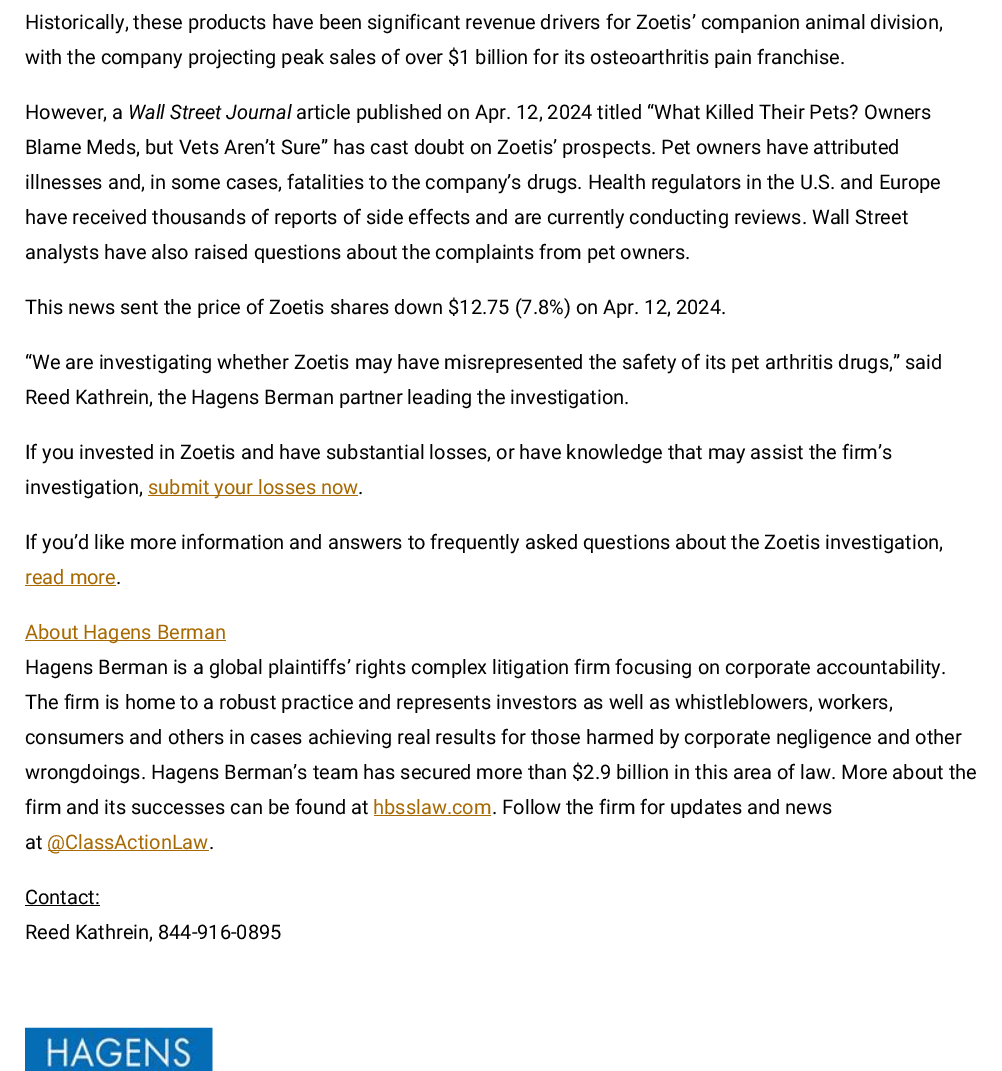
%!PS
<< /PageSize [1002 1071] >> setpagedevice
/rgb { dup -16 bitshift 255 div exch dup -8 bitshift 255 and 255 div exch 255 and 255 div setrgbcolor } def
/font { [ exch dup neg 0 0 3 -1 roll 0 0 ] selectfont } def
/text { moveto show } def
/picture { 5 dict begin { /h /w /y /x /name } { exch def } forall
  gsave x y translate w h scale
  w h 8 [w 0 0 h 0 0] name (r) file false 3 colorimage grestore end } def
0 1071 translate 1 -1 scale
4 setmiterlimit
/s1 { /Roboto-Regular 20 font 16#000000 rgb } def
/s2 { /Roboto-Italic 20 font 16#000000 rgb } def
/s3 { /Roboto-Regular 20 font 16#A76901 rgb } def
16#FFFFFF rgb
0 0 1002 1071 rectfill
s1
(Historically, these products have been significant revenue drivers for Zoetis’ companion animal division,) 25 29 text
(with the company projecting peak sales of over $1 billion for its osteoarthritis pain franchise.) 25 64 text
(However, a) 25 119 text
s2
(Wall Street Journal) 128 119 text
s1
(article published on Apr. 12, 2024 titled “What Killed Their Pets? Owners) 296 119 text
(Blame Meds, but Vets Aren’t Sure” has cast doubt on Zoetis’ prospects. Pet owners have attributed) 25 154 text
(illnesses and, in some cases, fatalities to the company’s drugs. Health regulators in the U.S. and Europe) 25 189 text
(have received thousands of reports of side effects and are currently conducting reviews. Wall Street) 25 224 text
(analysts have also raised questions about the complaints from pet owners.) 25 259 text
(This news sent the price of Zoetis shares down $12.75 \(7.8%\) on Apr. 12, 2024.) 25 314 text
(“We are investigating whether Zoetis may have misrepresented the safety of its pet arthritis drugs,” said) 25 369 text
(Reed Kathrein, the Hagens Berman partner leading the investigation.) 25 404 text
(If you invested in Zoetis and have substantial losses, or have knowledge that may assist the firm’s) 25 459 text
(investigation,) 25 494 text
16#A76901 rgb
148 495 210 1 rectfill
(submit your losses now) 148 494 text
s1
(.) 358 494 text
(If you’d like more information and answers to frequently asked questions about the Zoetis investigation,) 25 549 text
s3
(read more) 25 584 text
25 585 91 1 rectfill
s1
(.) 116 584 text
16#A76901 rgb
25 640 201 1 rectfill
(About Hagens Berman) 25 639 text
s1
(Hagens Berman is a global plaintiffs’ rights complex litigation firm focusing on corporate accountability.) 25 674 text
(The firm is home to a robust practice and represents investors as well as whistleblowers, workers,) 25 709 text
(consumers and others in cases achieving real results for those harmed by corporate negligence and other) 25 744 text
(wrongdoings. Hagens Berman’s team has secured more than $2.9 billion in this area of law. More about the) 25 779 text
(firm and its successes can be found at) 25 814 text
s3
(hbsslaw.com) 373 814 text
374 815 117 1 rectfill
s1
(. Follow the firm for updates and news) 492 814 text
(at) 25 849 text
16#A76901 rgb
48 850 161 1 rectfill
(@ClassActionLaw) 47 849 text
s1
(.) 209 849 text
(Contact:) 25 904 text
25 905 75 1 rectfill
(Reed Kathrein, 844-916-0895) 25 939 text
(pic1.raw) 25 1027 188 44 picture
showpage
